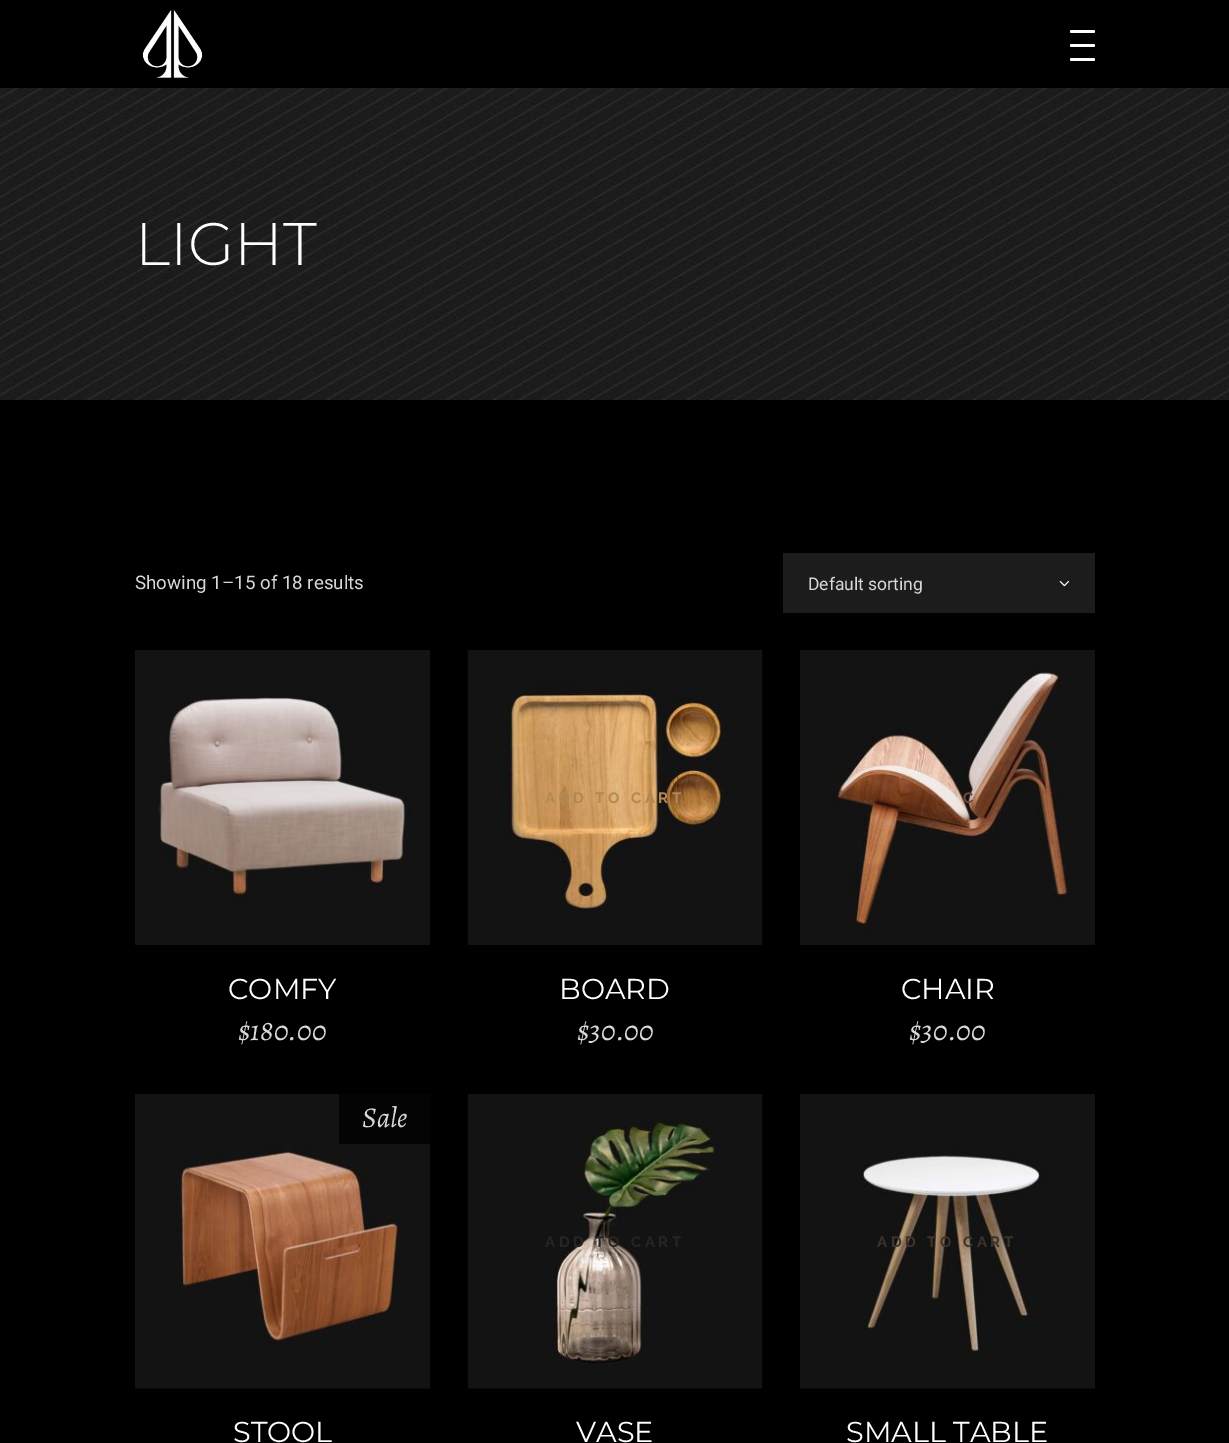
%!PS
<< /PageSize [1229 1443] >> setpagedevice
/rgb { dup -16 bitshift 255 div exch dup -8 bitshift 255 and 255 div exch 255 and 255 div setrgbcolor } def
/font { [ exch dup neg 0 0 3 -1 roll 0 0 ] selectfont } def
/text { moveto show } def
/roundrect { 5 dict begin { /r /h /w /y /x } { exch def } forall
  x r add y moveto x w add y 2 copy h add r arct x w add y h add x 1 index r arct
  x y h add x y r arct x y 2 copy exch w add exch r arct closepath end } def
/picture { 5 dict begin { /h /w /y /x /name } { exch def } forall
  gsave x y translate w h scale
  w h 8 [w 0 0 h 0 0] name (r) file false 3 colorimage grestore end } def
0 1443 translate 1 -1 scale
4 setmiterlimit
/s1 { /Montserrat-Light 60 font 16#FFFFFF rgb } def
/s2 { /Roboto-Regular 18.75 font 16#D8D8D8 rgb } def
/s3 { /Roboto-Regular 17.5 font 16#D8D8D8 rgb } def
/s4 { /Montserrat-Regular 28.75 font 16#FFFFFF rgb } def
/s5 { /Alegreya-Italic 28.75 font 16#D8D8D8 rgb } def
16#000000 rgb
0 0 1229 1443 rectfill
(pic1.raw) 142 10 61 68 picture
16#FFFFFF rgb
1070 30 25 3 1.5 roundrect fill
1070 44 25 3 1.5 roundrect fill
1070 58 25 3 1.5 roundrect fill
(pic2.raw) 0 88 1229 312 picture
s1
(LIGHT) 135 265 text
s2
(Showing 1–15 of 18 results) 135 589 text
16#1C1C1C rgb
783 553 312 60 rectfill
s3
(Default sorting) 808 590 text
(pic3.raw) 1059 581 10 6 picture
(pic4.raw) 135 650 295 295 picture
s4
(COMFY) 228 999 text
s5
($180.00) 238 1040 text
(pic5.raw) 467 650 296 295 picture
/Raleway-Bold 15 font
16#B38754 rgb
545 803 moveto 3.75 0 (ADD TO CART) ashow
s4
(BOARD) 559 999 text
s5
($30.00) 577 1040 text
(pic6.raw) 800 650 295 295 picture
/Raleway-Bold 15 font
16#714A36 rgb
963 803 moveto 3.75 0 (C) ashow
s4
(CHAIR) 901 999 text
s5
($30.00) 909 1040 text
(pic7.raw) 135 1094 295 295 picture
16#040404 rgb
339 1094 91 50 rectfill
s5
(Sale) 362 1127 text
s4
(STOOL) 233 1442 text
(pic8.raw) 467 1094 296 295 picture
/Raleway-Bold 15 font
16#272524 rgb
545 1247 moveto 3.75 0 (ADD TO CART) ashow
s4
(VASE) 576 1442 text
(pic9.raw) 800 1094 295 295 picture
/Raleway-Bold 15 font
16#3C332B rgb
877 1247 moveto 3.75 0 (ADD TO CART) ashow
s4
(SMALL TABLE) 846 1442 text
showpage
